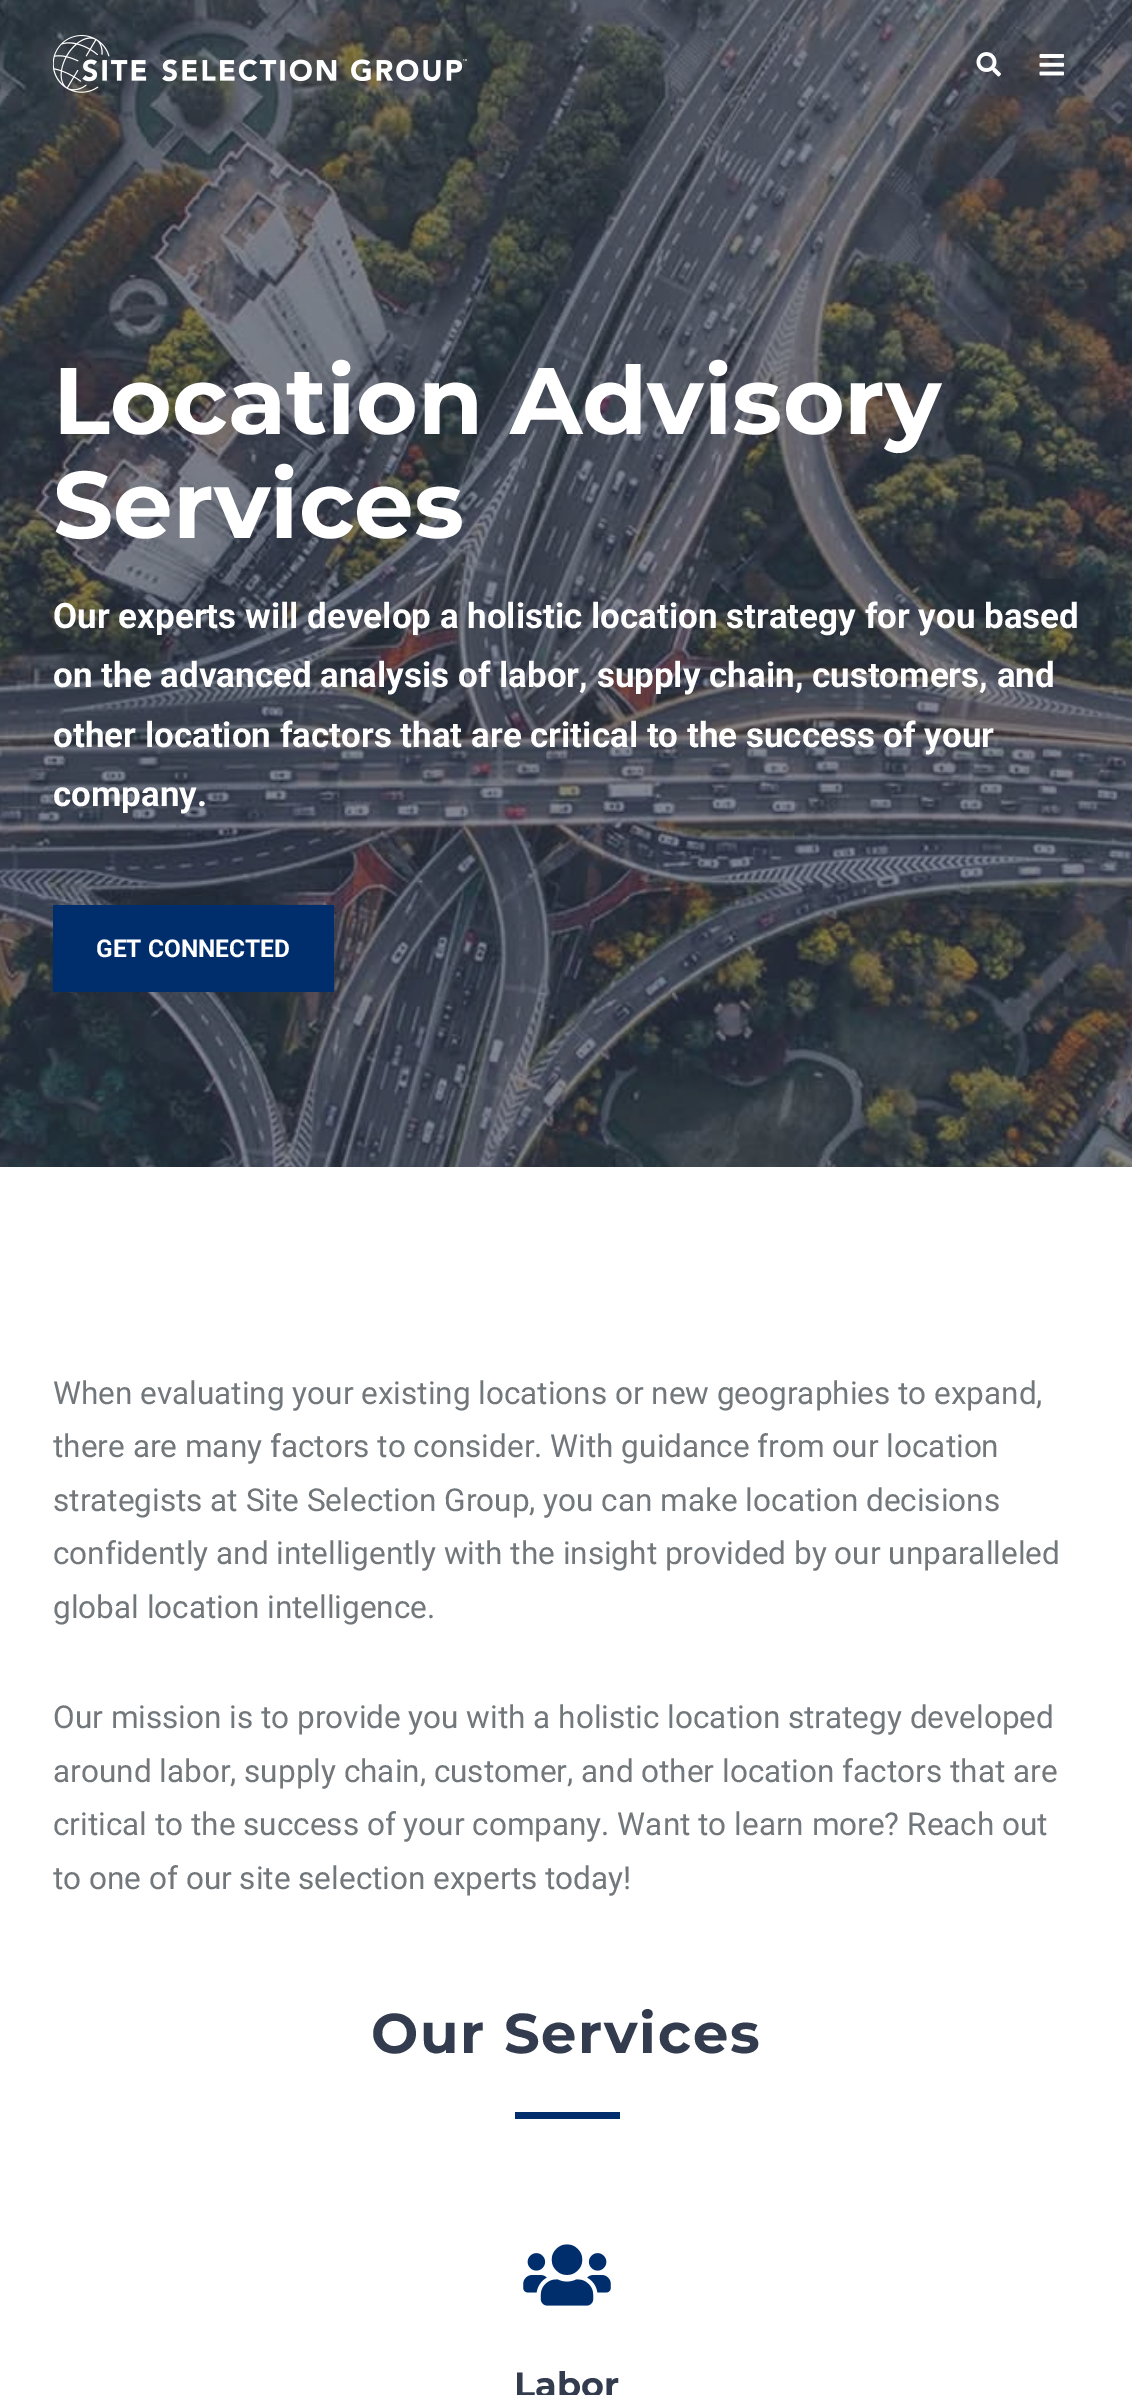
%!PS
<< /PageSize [1132 2395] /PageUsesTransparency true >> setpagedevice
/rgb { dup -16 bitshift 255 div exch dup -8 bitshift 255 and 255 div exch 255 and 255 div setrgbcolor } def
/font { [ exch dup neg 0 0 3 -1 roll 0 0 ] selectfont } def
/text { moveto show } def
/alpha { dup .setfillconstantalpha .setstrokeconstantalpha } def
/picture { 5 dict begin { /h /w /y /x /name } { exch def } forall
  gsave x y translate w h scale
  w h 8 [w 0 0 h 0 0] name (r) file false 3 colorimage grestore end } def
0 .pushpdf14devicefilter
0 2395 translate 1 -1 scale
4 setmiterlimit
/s1 { /Montserrat-Bold 94.5 font 16#FFFFFF rgb } def
/s2 { /Roboto-Bold 35 font 16#FFFFFF rgb } def
/s3 { /Roboto-Bold 24.5 font 16#FFFFFF rgb } def
/s4 { /Roboto-Regular 31.5 font 16#71777A rgb } def
/s5 { /Montserrat-Bold 35 font 16#333C4E rgb } def
16#FFFFFF rgb
0 0 1132 2395 rectfill
(pic1.raw) 0 0 1132 1167 picture
0.6 alpha
16#333C4E rgb
0 0 1132 1167 rectfill
1 alpha
(pic2.raw) 53 35 414 58 picture
(pic3.raw) 976 52 25 25 picture
(pic4.raw) 1039 54 25 22 picture
s1
(Location Advisory) 53 434 text
(Services) 53 538 text
s2
(Our experts will develop a holistic location strategy for you based) 53 628 text
(on the advanced analysis of labor, supply chain, customers, and) 53 687 text
(other location factors that are critical to the success of your) 53 747 text
(company.) 53 806 text
16#002E6D rgb
53 905 281 87 rectfill
s3
(GET CONNECTED) 96 957 text
s4
(When evaluating your existing locations or new geographies to expand,) 53 1404 text
(there are many factors to consider. With guidance from our location) 53 1457 text
(strategists at Site Selection Group, you can make location decisions) 53 1511 text
(confidently and intelligently with the insight provided by our unparalleled) 53 1564 text
(global location intelligence.) 53 1618 text
(Our mission is to provide you with a holistic location strategy developed) 53 1728 text
(around labor, supply chain, customer, and other location factors that are) 53 1782 text
(critical to the success of your company. Want to learn more? Reach out) 53 1835 text
(to one of our site selection experts today!) 53 1889 text
/Montserrat-Bold 56 font
16#333C4E rgb
371 2053 moveto 1.75 0 (Our Services) ashow
16#002E6D rgb
515 2112 105 7 rectfill
(pic5.raw) 523 2244 88 62 picture
s5
(Labor) 514 2397 text
.poppdf14devicefilter showpage
